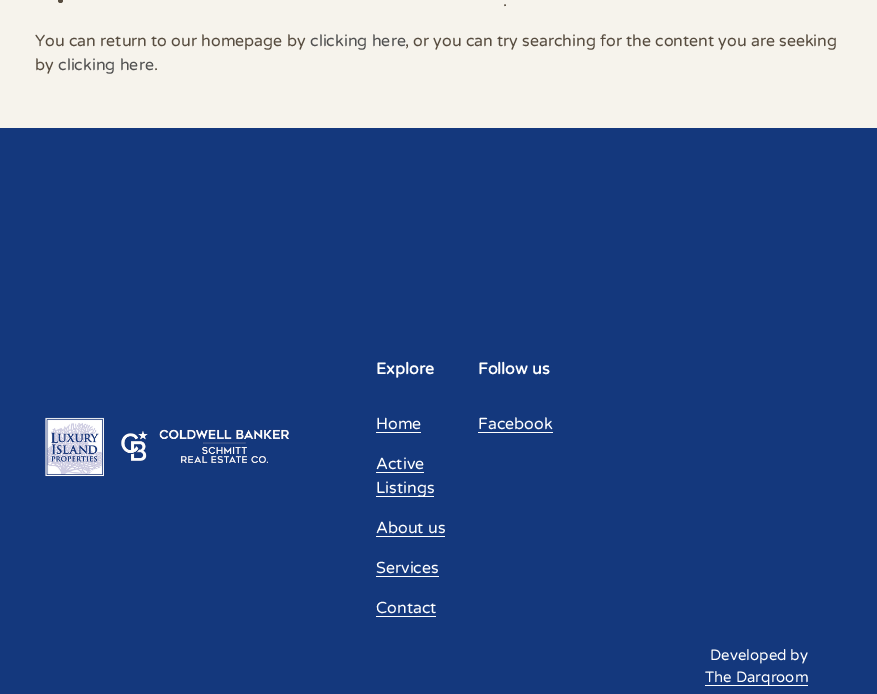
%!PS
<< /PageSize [877 694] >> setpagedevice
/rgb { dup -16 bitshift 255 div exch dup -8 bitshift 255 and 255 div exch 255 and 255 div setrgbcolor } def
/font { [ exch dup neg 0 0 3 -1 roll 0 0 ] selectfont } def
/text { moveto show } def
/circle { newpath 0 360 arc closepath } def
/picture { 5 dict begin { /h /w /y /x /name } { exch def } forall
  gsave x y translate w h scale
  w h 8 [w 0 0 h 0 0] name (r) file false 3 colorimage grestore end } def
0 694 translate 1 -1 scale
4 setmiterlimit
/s1 { /VarelaRound-Regular 16 font 16#574C3F rgb } def
/s2 { /VarelaRound-Regular 16 font 16#515151 rgb } def
/s3 { /VarelaRound-Bold 16 font 16#FFFFFF rgb } def
/s4 { /VarelaRound-Regular 16 font 16#FFFFFF rgb } def
/s5 { /VarelaRound-Regular 15 font 16#FFFFFF rgb } def
16#F6F3EC rgb
0 0 877 694 rectfill
16#574C3F rgb
60.5 0.5 2.5 circle fill
s1
(.) 503 6 text
(You can return to our homepage by) 35 46 text
s2
(clicking here) 310 46 text
s1
(, or you can try searching for the content you are seeking) 405 46 text
(by) 35 70 text
s2
(clicking here) 58 70 text
s1
(.) 154 70 text
16#14387D rgb
0 128 877 566 rectfill
s3
(Explore) 376 374 text
(Follow us) 478 374 text
(pic1.raw) 45 417 244 60 picture
s4
(Home) 376 429 text
376 432 45 1 rectfill
(Active) 376 469 text
376 472 48 1 rectfill
376 496 58 1 rectfill
(Listings) 376 493 text
(About us) 376 533 text
376 536 69 1 rectfill
(Services) 376 573 text
376 576 63 1 rectfill
(Contact) 376 613 text
376 616 60 1 rectfill
(Facebook) 478 429 text
478 432 75 1 rectfill
s5
(Developed by) 710 660 text
705 685 103 1 rectfill
(The Darqroom) 705 682 text
showpage
